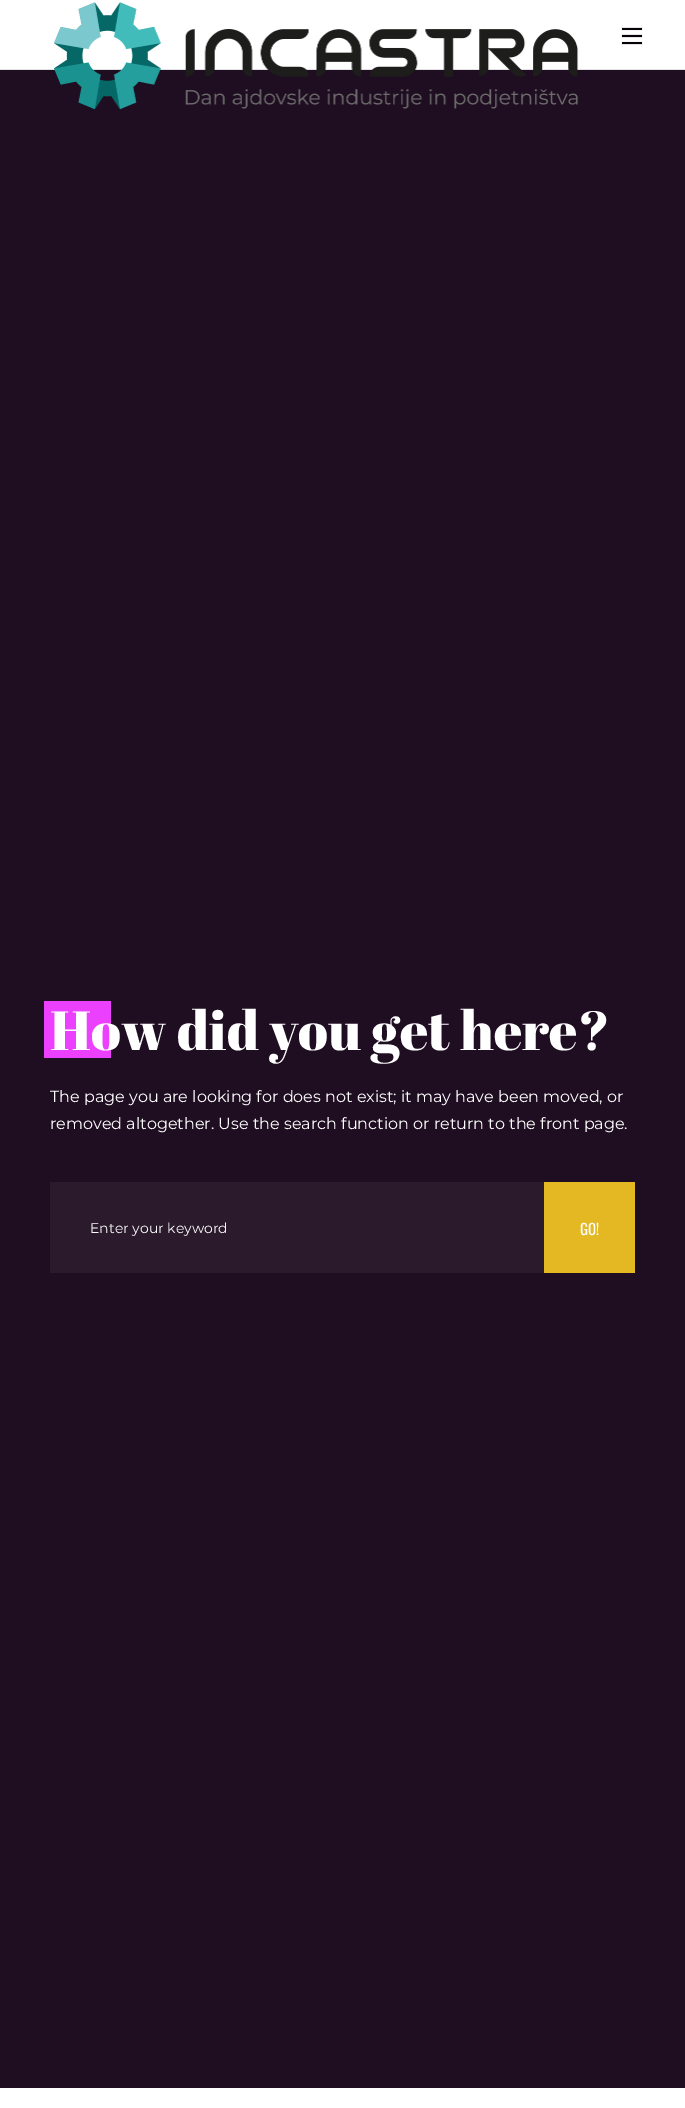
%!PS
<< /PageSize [685 2108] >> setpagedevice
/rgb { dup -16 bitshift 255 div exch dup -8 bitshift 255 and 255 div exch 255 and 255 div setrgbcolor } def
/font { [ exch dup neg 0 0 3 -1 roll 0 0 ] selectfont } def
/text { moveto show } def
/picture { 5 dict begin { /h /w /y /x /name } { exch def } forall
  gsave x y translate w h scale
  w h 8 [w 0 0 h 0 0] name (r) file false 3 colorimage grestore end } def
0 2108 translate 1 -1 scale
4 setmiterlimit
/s1 { /AbrilFatface-Regular 55 font 16#FFFFFF rgb } def
/s2 { /Montserrat-Regular 16 font 16#FFFFFF rgb } def
/s3 { /Montserrat-Regular 14 font 16#FFFFFF rgb } def
/s4 { /Oswald-Regular 15 font 16#FFFFFF rgb } def
16#FFFFFF rgb
0 0 685 2108 rectfill
16#E1E1E1 rgb
0 69 685 1 rectfill
16#1F0E21 rgb
0 70 685 2018 rectfill
(pic1.raw) 54 2 525 108 picture
(pic2.raw) 621 27 22 18 picture
16#EC40FF rgb
44 1001 67 57 rectfill
s1
(How did you get here?) 50 1050 text
s2
(The page you are looking for does not exist; it may have been moved, or) 50 1102 text
(removed altogether. Use the search function or return to the front page.) 50 1129 text
16#2A1A2C rgb
50 1182 494 91 rectfill
s3
(Enter your keyword) 90 1233 text
16#E3B823 rgb
544 1182 91 91 rectfill
s4
(GO!) 580 1235 text
showpage
